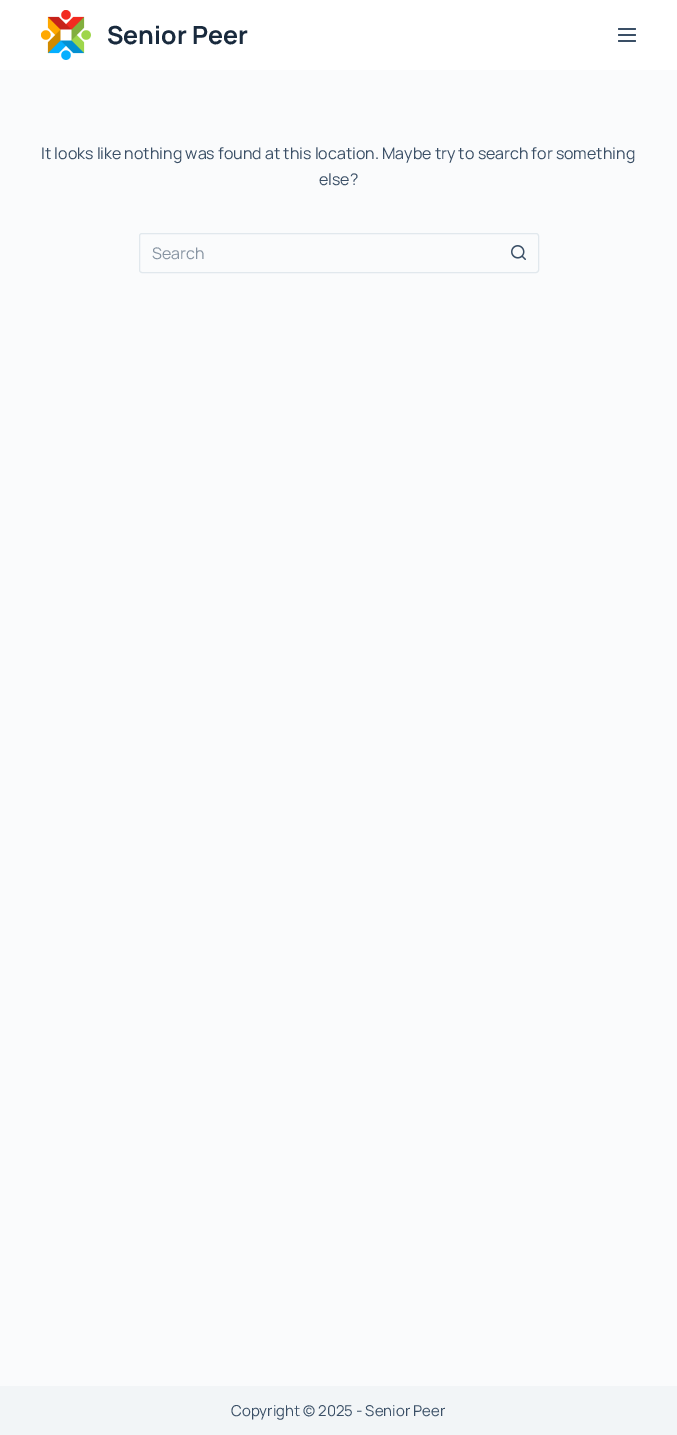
%!PS
<< /PageSize [677 1435] >> setpagedevice
/rgb { dup -16 bitshift 255 div exch dup -8 bitshift 255 and 255 div exch 255 and 255 div setrgbcolor } def
/font { [ exch dup neg 0 0 3 -1 roll 0 0 ] selectfont } def
/text { moveto show } def
/roundrect { 5 dict begin { /r /h /w /y /x } { exch def } forall
  x r add y moveto x w add y 2 copy h add r arct x w add y h add x 1 index r arct
  x y h add x y r arct x y 2 copy exch w add exch r arct closepath end } def
/picture { 5 dict begin { /h /w /y /x /name } { exch def } forall
  gsave x y translate w h scale
  w h 8 [w 0 0 h 0 0] name (r) file false 3 colorimage grestore end } def
0 1435 translate 1 -1 scale
4 setmiterlimit
/s1 { /Manrope-Bold 25 font 16#192A3D rgb } def
/s2 { /Manrope-Regular 16 font 16#3A4F66 rgb } def
/s3 { /Manrope-Regular 16 font 16#8794A2 rgb } def
/s4 { /Manrope-Regular 15 font 16#3A4F66 rgb } def
16#FAFBFC rgb
0 0 677 1435 rectfill
16#FFFFFF rgb
0 0 677 70 rectfill
(pic1.raw) 41 10 50 50 picture
s1
(Senior Peer) 107 44 text
16#3A4F66 rgb
618 28 18 2 1 roundrect fill
618 34 18 2 1 roundrect fill
618 40 18 2 1 roundrect fill
s2
(It looks like nothing was found at this location. Maybe try to search for something) 41 159 text
(else?) 319 185 text
16#E1E8ED rgb
139.5 233.5 399 39 2.5 roundrect stroke
s3
(Search) 152 259 text
(pic2.raw) 511 245 15 15 picture
16#F2F5F7 rgb
0 1386 677 49 rectfill
s4
(Copyright © 2025 - Senior Peer) 231 1416 text
showpage
